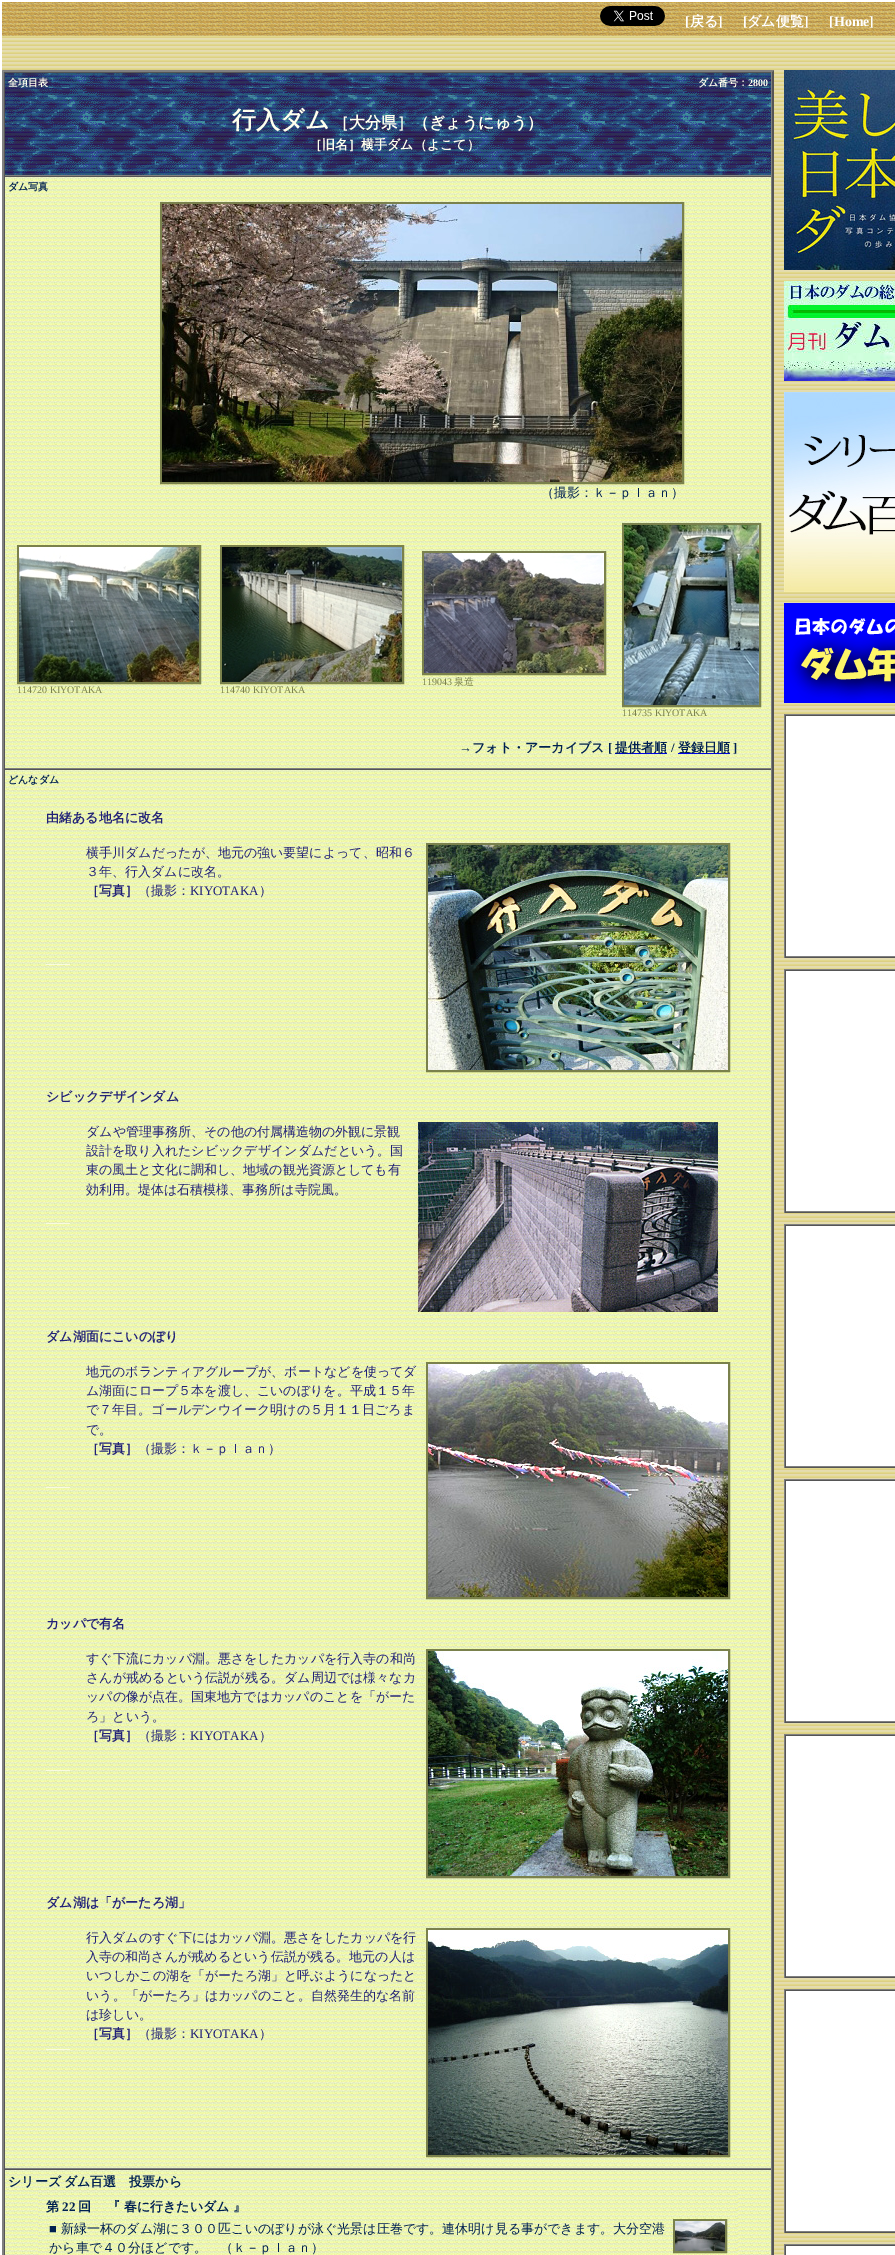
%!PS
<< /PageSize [895 2255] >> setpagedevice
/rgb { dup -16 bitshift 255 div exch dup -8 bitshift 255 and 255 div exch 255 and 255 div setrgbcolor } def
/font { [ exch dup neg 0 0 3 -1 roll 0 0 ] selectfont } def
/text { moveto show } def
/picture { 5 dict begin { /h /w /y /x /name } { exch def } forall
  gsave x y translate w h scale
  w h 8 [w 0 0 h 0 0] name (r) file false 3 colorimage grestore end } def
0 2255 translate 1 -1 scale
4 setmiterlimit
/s1 { /LiberationSerif-Bold 14 font 16#FFFFFF rgb } def
/s2 { /WenQuanYiZenHei-Bold 14 font 16#FFFFFF rgb } def
/s3 { /WenQuanYiZenHei-Bold 10 font 16#FFFFEE rgb } def
/s4 { /LiberationSerif-Bold 10 font 16#FFFFEE rgb } def
/s5 { /WenQuanYiZenHei-Bold 24 font 16#FFFFEE rgb } def
/s6 { /WenQuanYiZenHei-Bold 16 font 16#FFFFEE rgb } def
/s7 { /WenQuanYiZenHei-Bold 13 font 16#FFFFEE rgb } def
/s8 { /WenQuanYiZenHei-Bold 10 font 16#002050 rgb } def
/s9 { /WenQuanYiZenHei-Medium 13 font 16#002050 rgb } def
/s10 { /LiberationSerif-Regular 10 font 16#7A814C rgb } def
/s11 { /WenQuanYiZenHei-Medium 10 font 16#7A814C rgb } def
/s12 { /LiberationSerif-Bold 13 font 16#002050 rgb } def
/s13 { /WenQuanYiZenHei-Bold 13 font 16#002050 rgb } def
/s14 { /WenQuanYiZenHei-Bold 13 font 16#222277 rgb } def
/s15 { /WenQuanYiZenHei-Medium 13 font 16#222277 rgb } def
/s16 { /LiberationSerif-Regular 13 font 16#222277 rgb } def
/s17 { /LiberationSerif-Regular 16 font 16#FFFFEE rgb } def
/s18 { /LiberationSerif-Regular 13 font 16#002050 rgb } def
16#FFFFFF rgb
0 0 895 2255 rectfill
(pic1.raw) 2 36 893 2219 picture
(pic2.raw) 2 2 893 34 picture
(pic3.raw) 600 6 65 20 picture
s1
([) 685 26 text
s2
(戻る) 690 26 text
s1
(]) 718 26 text
([) 743 26 text
s2
(ダム便覧) 747 26 text
s1
(]) 804 26 text
([Home]) 829 26 text
16#808080 rgb
2 70 moveto 774 70 lineto 772 72 lineto 4 72 lineto closepath fill
16#555555 rgb
774 70 moveto 774 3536 lineto 772 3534 lineto 772 72 lineto closepath fill
16#808080 rgb
2 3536 moveto 2 70 lineto 4 72 lineto 4 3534 lineto closepath fill
(pic4.raw) 5 73 766 102 picture
16#555555 rgb
4 72 768 1 rectfill
16#808080 rgb
771 72 1 104 rectfill
4 175 768 1 rectfill
16#555555 rgb
4 72 1 104 rectfill
s3
(全項目表) 8 86 text
(ダム番号：) 698 86 text
s4
(2800) 748 86 text
s5
(行入ダム) 232 128 text
s6
(［大分県］（ぎょうにゅう）) 333 128 text
s7
(［旧名］横手ダム（よこて）) 309 149 text
(pic5.raw) 5 177 766 591 picture
16#555555 rgb
4 176 768 1 rectfill
16#808080 rgb
771 176 1 593 rectfill
4 768 768 1 rectfill
16#555555 rgb
4 176 1 593 rectfill
s8
(ダム写真) 8 190 text
16#7A814C rgb
2 setlinewidth
161 203 522 280 rectstroke
(pic6.raw) 162 204 520 278 picture
s9
(（撮影：ｋ－ｐｌａｎ）) 541 497 text
16#7A814C rgb
423 552 182 122 rectstroke
(pic7.raw) 424 553 180 120 picture
s10
(119043) 422 685 text
s11
(泉造) 454 685 text
18 546 182 137 rectstroke
(pic8.raw) 19 547 180 135 picture
s10
(114720 KIYOTAKA) 17 693 text
221 546 182 137 rectstroke
(pic9.raw) 222 547 180 135 picture
(114740 KIYOTAKA) 220 693 text
623 524 137 182 rectstroke
(pic10.raw) 624 525 135 180 picture
(114735 KIYOTAKA) 622 716 text
s12
(→) 459 752 text
s13
(フォト・アーカイブス) 472 752 text
s12
([) 608 752 text
16#0000EE rgb
615 753 52 1 rectfill
s13
(提供者順) 615 752 text
s12
(/) 671 752 text
16#0000EE rgb
678 753 52 1 rectfill
s13
(登録日順) 678 752 text
s12
(]) 733 752 text
(pic11.raw) 5 770 766 1398 picture
16#555555 rgb
4 769 768 1 rectfill
16#808080 rgb
771 769 1 1400 rectfill
4 2168 768 1 rectfill
16#555555 rgb
4 769 1 1400 rectfill
s8
(どんなダム) 8 783 text
s14
(由緒ある地名に改名) 46 822 text
s15
(横手川ダムだったが、地元の強い要望によって、昭和６) 86 857 text
(３年、行入ダムに改名。) 86 876 text
s14
(［写真］) 86 895 text
s15
(（撮影：) 138 895 text
s16
(KIYOTAKA) 190 895 text
s15
(）) 259 895 text
16#7A814C rgb
427 844 302 227 rectstroke
(pic12.raw) 428 845 300 225 picture
s17
(___) 46 963 text
s14
(シビックデザインダム) 46 1101 text
s15
(ダムや管理事務所、その他の付属構造物の外観に景観) 86 1136 text
(設計を取り入れたシビックデザインダムだという。国) 86 1155 text
(東の風土と文化に調和し、地域の観光資源としても有) 86 1174 text
(効利用。堤体は石積模様、事務所は寺院風。) 86 1194 text
(pic13.raw) 418 1122 300 190 picture
s17
(___) 46 1222 text
s14
(ダム湖面にこいのぼり) 46 1341 text
s15
(地元のボランティアグループが、ボートなどを使ってダ) 86 1376 text
(ム湖面にロープ５本を渡し、こいのぼりを。平成１５年) 86 1395 text
(で７年目。ゴールデンウイーク明けの５月１１日ごろま) 86 1414 text
(で。) 86 1434 text
s14
(［写真］) 86 1453 text
s15
(（撮影：ｋ－ｐｌａｎ）) 138 1453 text
16#7A814C rgb
427 1363 302 235 rectstroke
(pic14.raw) 428 1364 300 233 picture
s17
(___) 46 1486 text
s14
(カッパで有名) 46 1628 text
s15
(すぐ下流にカッパ淵。悪さをしたカッパを行入寺の和尚) 86 1663 text
(さんが戒めるという伝説が残る。ダム周辺では様々なカ) 86 1682 text
(ッパの像が点在。国東地方ではカッパのことを「がーた) 86 1701 text
(ろ」という。) 86 1721 text
s14
(［写真］) 86 1740 text
s15
(（撮影：) 138 1740 text
s16
(KIYOTAKA) 190 1740 text
s15
(）) 259 1740 text
16#7A814C rgb
427 1650 302 227 rectstroke
(pic15.raw) 428 1651 300 225 picture
s17
(___) 46 1769 text
s14
(ダム湖は「がーたろ湖」) 46 1907 text
s15
(行入ダムのすぐ下にはカッパ淵。悪さをしたカッパを行) 86 1942 text
(入寺の和尚さんが戒めるという伝説が残る。地元の人は) 86 1961 text
(いつしかこの湖を「がーたろ湖」と呼ぶようになったと) 86 1980 text
(いう。「がーたろ」はカッパのこと。自然発生的な名前) 86 2000 text
(は珍しい。) 86 2019 text
s14
(［写真］) 86 2038 text
s15
(（撮影：) 138 2038 text
s16
(KIYOTAKA) 190 2038 text
s15
(）) 259 2038 text
16#7A814C rgb
427 1929 302 227 rectstroke
(pic16.raw) 428 1930 300 225 picture
s17
(___) 46 2048 text
(pic17.raw) 5 2170 766 85 picture
16#555555 rgb
4 2169 768 1 rectfill
16#808080 rgb
771 2169 1 86 rectfill
16#555555 rgb
4 2169 1 86 rectfill
/WenQuanYiZenHei-Bold 13 font
16#002050 rgb
8 2186 moveto -1 0 32 (シリーズ ダム百選　投票から) widthshow
(pic18.raw) 38 2191 700 64 picture
(第) 46 2211 text
s12
(22) 62 2211 text
/WenQuanYiZenHei-Bold 13 font
78 2211 moveto -0.5 0 32 (回　 『 春に行きたいダム 』) widthshow
s18
(■) 49 2233 text
s9
(新緑一杯のダム湖に３００匹こいのぼりが泳ぐ光景は圧巻です。連休明け見る事ができます。大分空港) 61 2233 text
(から車で４０分ほどです。　（ｋ－ｐｌａｎ）) 49 2252 text
16#7A814C rgb
674 2220 52 32 rectstroke
(pic19.raw) 675 2221 50 30 picture
(pic20.raw) 784 70 111 200 picture
(pic21.raw) 784 281 111 100 picture
(pic22.raw) 784 392 111 200 picture
(pic23.raw) 784 603 111 100 picture
16#FFFFFF rgb
786 716 109 240 rectfill
16#808080 rgb
784 714 111 1 rectfill
16#555555 rgb
784 957 111 1 rectfill
16#808080 rgb
784 714 1 244 rectfill
16#555555 rgb
785 715 110 1 rectfill
16#808080 rgb
785 956 110 1 rectfill
16#555555 rgb
785 715 1 242 rectfill
16#FFFFFF rgb
786 971 109 240 rectfill
16#808080 rgb
784 969 111 1 rectfill
16#555555 rgb
784 1212 111 1 rectfill
16#808080 rgb
784 969 1 244 rectfill
16#555555 rgb
785 970 110 1 rectfill
16#808080 rgb
785 1211 110 1 rectfill
16#555555 rgb
785 970 1 242 rectfill
16#FFFFFF rgb
786 1226 109 240 rectfill
16#808080 rgb
784 1224 111 1 rectfill
16#555555 rgb
784 1467 111 1 rectfill
16#808080 rgb
784 1224 1 244 rectfill
16#555555 rgb
785 1225 110 1 rectfill
16#808080 rgb
785 1466 110 1 rectfill
16#555555 rgb
785 1225 1 242 rectfill
16#FFFFFF rgb
786 1481 109 240 rectfill
16#808080 rgb
784 1479 111 1 rectfill
16#555555 rgb
784 1722 111 1 rectfill
16#808080 rgb
784 1479 1 244 rectfill
16#555555 rgb
785 1480 110 1 rectfill
16#808080 rgb
785 1721 110 1 rectfill
16#555555 rgb
785 1480 1 242 rectfill
16#FFFFFF rgb
786 1736 109 240 rectfill
16#808080 rgb
784 1734 111 1 rectfill
16#555555 rgb
784 1977 111 1 rectfill
16#808080 rgb
784 1734 1 244 rectfill
16#555555 rgb
785 1735 110 1 rectfill
16#808080 rgb
785 1976 110 1 rectfill
16#555555 rgb
785 1735 1 242 rectfill
16#FFFFFF rgb
786 1991 109 240 rectfill
16#808080 rgb
784 1989 111 1 rectfill
16#555555 rgb
784 2232 111 1 rectfill
16#808080 rgb
784 1989 1 244 rectfill
16#555555 rgb
785 1990 110 1 rectfill
16#808080 rgb
785 2231 110 1 rectfill
16#555555 rgb
785 1990 1 242 rectfill
16#FFFFFF rgb
786 2246 109 9 rectfill
16#808080 rgb
784 2244 111 1 rectfill
784 2244 1 11 rectfill
16#555555 rgb
785 2245 110 1 rectfill
785 2245 1 10 rectfill
showpage
